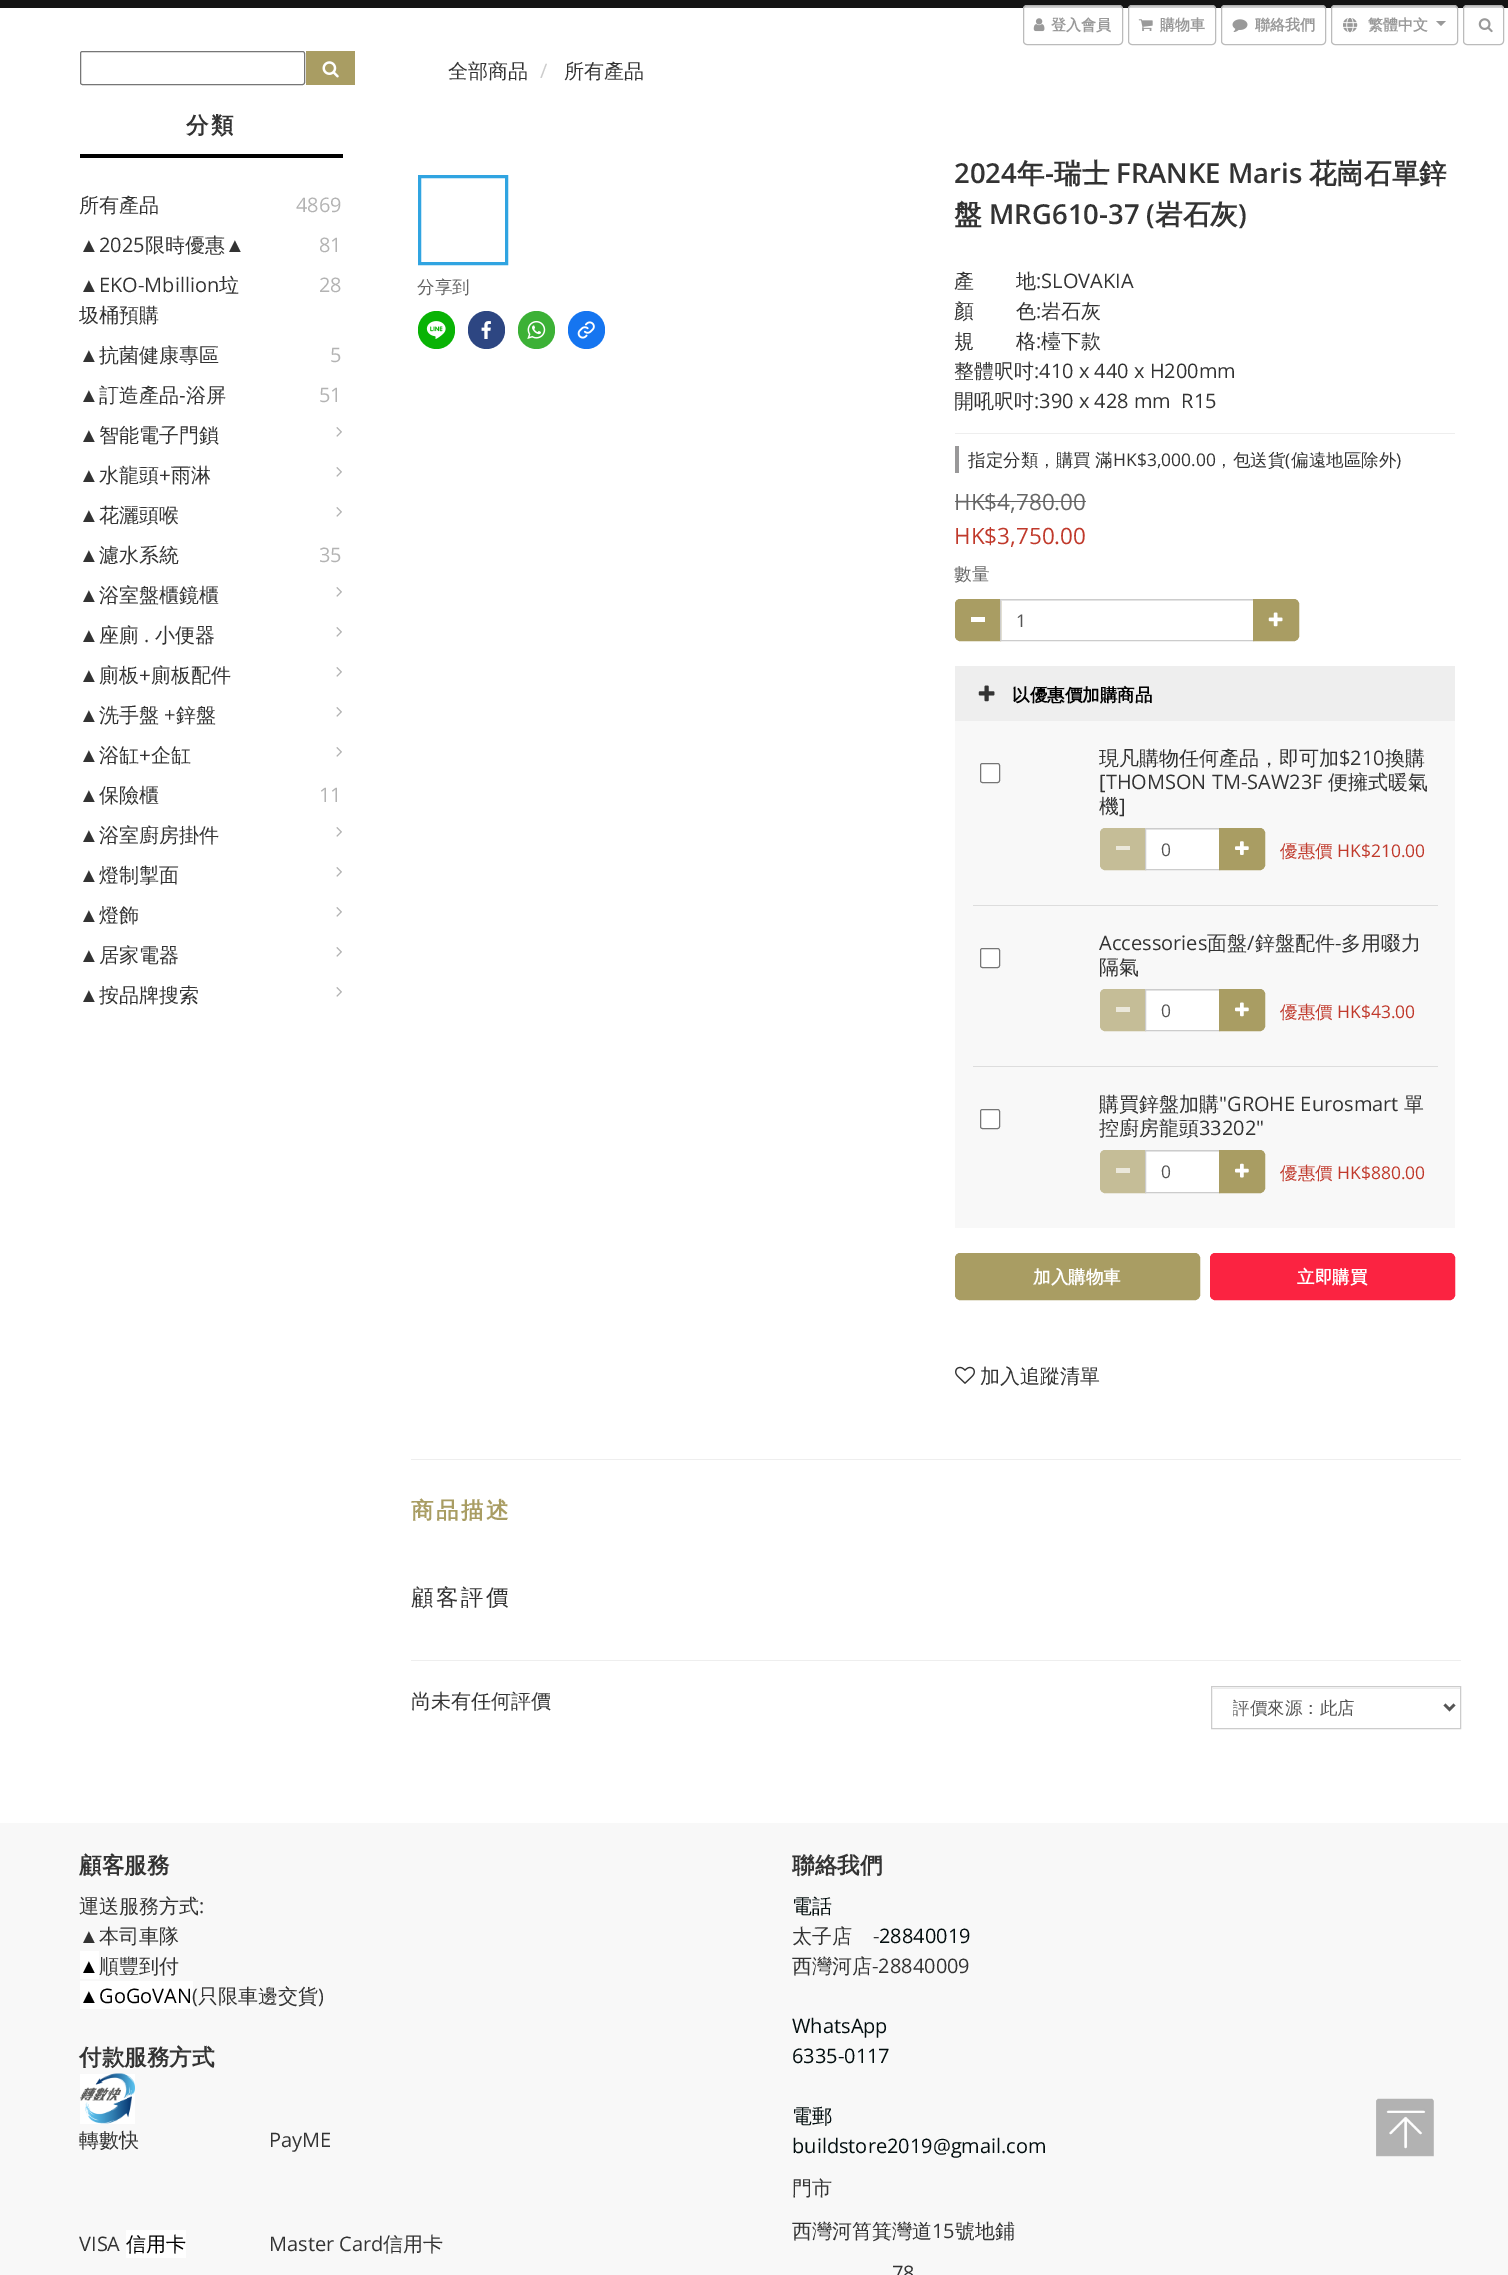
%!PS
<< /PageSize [1508 2275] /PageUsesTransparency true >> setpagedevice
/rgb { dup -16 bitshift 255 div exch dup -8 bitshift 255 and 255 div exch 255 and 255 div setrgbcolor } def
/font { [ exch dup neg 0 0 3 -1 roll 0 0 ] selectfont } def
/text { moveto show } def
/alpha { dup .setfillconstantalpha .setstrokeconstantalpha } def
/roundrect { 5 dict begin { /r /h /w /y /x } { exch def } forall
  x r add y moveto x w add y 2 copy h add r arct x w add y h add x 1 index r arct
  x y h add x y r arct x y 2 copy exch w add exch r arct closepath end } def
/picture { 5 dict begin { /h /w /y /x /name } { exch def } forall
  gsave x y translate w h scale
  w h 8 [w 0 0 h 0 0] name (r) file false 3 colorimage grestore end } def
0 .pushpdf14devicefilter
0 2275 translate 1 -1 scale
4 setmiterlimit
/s1 { /WenQuanYiZenHei-Bold 15 font 16#999999 rgb } def
/s2 { /WenQuanYiZenHei-Medium 20 font 16#333333 rgb } def
/s3 { /OpenSans-Regular 20 font 16#B3B3B3 rgb } def
/s4 { /LiberationSans-Regular 20 font 16#333333 rgb } def
/s5 { /OpenSans-Regular 20 font 16#333333 rgb } def
/s6 { /OpenSans-Regular 20 font 16#CCCCCC rgb } def
/s7 { /WenQuanYiZenHei-Medium 17.5 font 16#666666 rgb } def
/s8 { /OpenSans-SemiBold 27.5 font 16#333333 rgb } def
/s9 { /WenQuanYiZenHei-Bold 27.5 font 16#333333 rgb } def
/s10 { /OpenSans-Regular 17.5 font 16#333333 rgb } def
/s11 { /WenQuanYiZenHei-Medium 17.5 font 16#333333 rgb } def
/s12 { /OpenSans-Regular 22.5 font 16#666666 rgb } def
/s13 { /OpenSans-Regular 22.5 font 16#C0392B rgb } def
/s14 { /OpenSans-Regular 17.5 font 16#555555 rgb } def
/s15 { /WenQuanYiZenHei-Bold 17.5 font 16#000000 rgb } def
/s16 { /WenQuanYiZenHei-Medium 17.5 font 16#C0392B rgb } def
/s17 { /OpenSans-Regular 17.5 font 16#C0392B rgb } def
/s18 { /WenQuanYiZenHei-Bold 17.5 font 16#FFFFFF rgb } def
/s19 { /WenQuanYiZenHei-Medium 17.5 font 16#555555 rgb } def
/s20 { /WenQuanYiZenHei-Bold 22.5 font 16#333333 rgb } def
/s21 { /LiberationSans-Regular 20 font 16#000000 rgb } def
/s22 { /OpenSans-Regular 20 font 16#000000 rgb } def
/s23 { /WenQuanYiZenHei-Medium 20 font 16#000000 rgb } def
/s24 { /WenQuanYiZenHei-Medium 20 font 16#020D0E rgb } def
/s25 { /OpenSans-Regular 20 font 16#020D0E rgb } def
16#FFFFFF rgb
0 0 1508 2275 rectfill
16#141414 rgb
0 0 1508 8 rectfill
0.8 alpha
16#FFFFFF rgb
1023 5 100 40 4 roundrect fill
16#AAAAAA rgb
1023.5 5.5 99 39 3.5 roundrect stroke
1 alpha
(pic1.raw) 1033 18 12 14 picture
s1
(登入會員) 1051 30 text
0.8 alpha
16#FFFFFF rgb
1128 5 88 40 4 roundrect fill
16#AAAAAA rgb
1128.5 5.5 87 39 3.5 roundrect stroke
1 alpha
(pic2.raw) 1138 19 15 12 picture
s1
(購物車) 1160 30 text
0.8 alpha
16#FFFFFF rgb
1221 5 105 40 4 roundrect fill
16#AAAAAA rgb
1221.5 5.5 104 39 3.5 roundrect stroke
1 alpha
(pic3.raw) 1232 19 16 13 picture
s1
(聯絡我們) 1255 30 text
0.8 alpha
16#FFFFFF rgb
1331 5 127 40 4 roundrect fill
16#AAAAAA rgb
1331.5 5.5 126 39 3.5 roundrect stroke
1 alpha
(pic4.raw) 1343 18 15 15 picture
s1
(繁體中文) 1368 30 text
1436 21 moveto 1446 21 lineto 1441 26 lineto closepath fill
0.8 alpha
16#FFFFFF rgb
1463 5 41 40 4 roundrect fill
16#AAAAAA rgb
1463.5 5.5 40 39 3.5 roundrect stroke
1 alpha
(pic5.raw) 1478 18 15 15 picture
16#767676 rgb
80.5 51.5 224 33 2 roundrect stroke
16#A99D63 rgb
306 51 49 34 rectfill
(pic6.raw) 322 61 17 17 picture
16#000000 rgb
80 154 263 4 rectfill
/WenQuanYiZenHei-Bold 22.5 font
16#333333 rgb
186 133 moveto 2.5 0 (分類) ashow
s2
(所有產品) 79 212 text
s3
(4869) 296 212 text
s4
(▲) 79 252 text
s5
(2025) 99 252 text
s2
(限時優惠) 145 252 text
s4
(▲) 225 252 text
s3
(81) 319 252 text
s4
(▲) 79 292 text
s5
(EKO-Mbillion) 99 292 text
s2
(垃) 219 292 text
(圾桶預購) 79 322 text
s3
(28) 319 292 text
s4
(▲) 79 362 text
s2
(抗菌健康專區) 99 362 text
s3
(5) 330 362 text
s4
(▲) 79 402 text
s2
(訂造產品) 99 402 text
s4
(-) 179 402 text
s2
(浴屏) 186 402 text
s3
(51) 319 402 text
s4
(▲) 79 442 text
s2
(智能電子門鎖) 99 442 text
(pic7.raw) 336 427 6 10 picture
s4
(▲) 79 482 text
s2
(水龍頭) 99 482 text
s4
(+) 159 482 text
s2
(雨淋) 171 482 text
(pic7.raw) 336 467 6 10 picture
s4
(▲) 79 522 text
s2
(花灑頭喉) 99 522 text
(pic7.raw) 336 507 6 10 picture
s4
(▲) 79 562 text
s2
(濾水系統) 99 562 text
s3
(35) 319 562 text
s4
(▲) 79 602 text
s2
(浴室盤櫃鏡櫃) 99 602 text
(pic7.raw) 336 587 6 10 picture
s4
(▲) 79 642 text
s2
(座廁) 99 642 text
s5
(.) 144 642 text
s2
(小便器) 155 642 text
(pic7.raw) 336 627 6 10 picture
s4
(▲) 79 682 text
s2
(廁板) 99 682 text
s4
(+) 139 682 text
s2
(廁板配件) 151 682 text
(pic7.raw) 336 667 6 10 picture
s4
(▲) 79 722 text
s2
(洗手盤) 99 722 text
s5
(+) 164 722 text
s2
(鋅盤) 176 722 text
(pic7.raw) 336 707 6 10 picture
s4
(▲) 79 762 text
s2
(浴缸) 99 762 text
s4
(+) 139 762 text
s2
(企缸) 151 762 text
(pic7.raw) 336 747 6 10 picture
s4
(▲) 79 802 text
s2
(保險櫃) 99 802 text
s3
(11) 319 802 text
s4
(▲) 79 842 text
s2
(浴室廚房掛件) 99 842 text
(pic7.raw) 336 827 6 10 picture
s4
(▲) 79 882 text
s2
(燈制掣面) 99 882 text
(pic7.raw) 336 867 6 10 picture
s4
(▲) 79 922 text
s2
(燈飾) 99 922 text
(pic7.raw) 336 907 6 10 picture
s4
(▲) 79 962 text
s2
(居家電器) 99 962 text
(pic7.raw) 336 947 6 10 picture
s4
(▲) 79 1002 text
s2
(按品牌搜索) 99 1002 text
(pic7.raw) 336 987 6 10 picture
(全部商品) 448 78 text
s6
(/) 540 78 text
s2
(所有產品) 564 78 text
16#30A4E1 rgb
3 setlinewidth
419.5 176.5 87 87 rectstroke
s7
(分享到) 417 293 text
16#09B305 rgb
418 311 37 38 18.5 roundrect fill
(pic8.raw) 426 321 20 18 picture
16#2D4682 rgb
468 311 37 38 18.5 roundrect fill
(pic9.raw) 481 321 10 18 picture
16#3CB136 rgb
518 311 37 38 18.5 roundrect fill
(pic10.raw) 527 320 19 19 picture
16#1575F0 rgb
568 311 37 38 18.5 roundrect fill
(pic11.raw) 577 321 18 18 picture
s8
(2024) 954 183 text
s9
(年) 1017 183 text
s8
(-) 1045 183 text
s9
(瑞士) 1054 183 text
s8
(FRANKE Maris) 1116 183 text
s9
(花崗石單鋅) 1309 183 text
(盤) 954 224 text
s8
(MRG610-37 \() 989 224 text
s9
(岩石灰) 1155 224 text
s8
(\)) 1238 224 text
/WenQuanYiZenHei-Medium 20 font
954 288 moveto -0.75 0 32 (產        地) widthshow
s5
(:SLOVAKIA) 1036 288 text
/WenQuanYiZenHei-Medium 20 font
954 318 moveto -0.75 0 32 (顏        色) widthshow
s5
(:) 1036 318 text
s2
(岩石灰) 1041 318 text
954 348 moveto -0.75 0 32 (規        格) widthshow
s5
(:) 1036 348 text
s2
(檯下款) 1041 348 text
(整體呎吋) 954 378 text
s5
(:410 x 440 x H200mm) 1034 378 text
s2
(開吼呎吋) 954 408 text
s5
(:390 x 428 mm  R15) 1034 408 text
16#EEEEEE rgb
955 433 500 1 rectfill
16#999899 rgb
955 446 4 27 rectfill
/WenQuanYiZenHei-Medium 17.5 font
16#333333 rgb
968 466 moveto -1 0 32 (指定分類，購買 滿) widthshow
s10
(HK$3,000.00) 1113 466 text
s11
(，包送貨) 1215 466 text
s10
(\() 1285 466 text
s11
(偏遠地區除外) 1291 466 text
s10
(\)) 1396 466 text
s12
(HK$4,780.00) 954 510 text
955 501 131 1 rectfill
s13
(HK$3,750.00) 954 544 text
s7
(數量) 954 580 text
16#A99D63 rgb
960 599.5 moveto 1000.5 599.5 lineto 1000.5 640.5 lineto 960 640.5 lineto 957.5 640.5 955.5 638.5 955.5 636 curveto 955.5 604 lineto 955.5 601.5 957.5 599.5 960 599.5 curveto closepath gsave fill grestore
1 setlinewidth
stroke
16#FFFFFF rgb
971 617 14 5 rectfill
16#ECECEC rgb
1001 600 252 1 rectfill
16#CCCCCC rgb
1000.5 599.5 253 41 rectstroke
s14
(1) 1016 627 text
16#A99D63 rgb
1253.5 599.5 moveto 1294 599.5 lineto 1296.5 599.5 1298.5 601.5 1298.5 604 curveto 1298.5 636 lineto 1298.5 638.5 1296.5 640.5 1294 640.5 curveto 1253.5 640.5 lineto closepath gsave fill grestore
stroke
(pic12.raw) 1268 612 15 15 picture
16#EEEEEE rgb
955 666 500 55 rectfill
(pic13.raw) 978 685 17 17 picture
s15
(以優惠價加購商品) 1012 701 text
16#F8F8F8 rgb
955 721 500 507 rectfill
16#FFFFFF rgb
980.5 763.5 19 19 2 roundrect gsave fill grestore
16#767676 rgb
stroke
s2
(現凡購物任何產品，即可加) 1099 765 text
s5
($210) 1339 765 text
s2
(換購) 1385 765 text
s5
([THOMSON TM-SAW23F) 1099 789 text
s2
(便擁式暖氣) 1328 789 text
(機) 1099 813 text
s5
(]) 1119 813 text
16#C5BD97 rgb
1105 828.5 moveto 1145.5 828.5 lineto 1145.5 869.5 lineto 1105 869.5 lineto 1102.5 869.5 1100.5 867.5 1100.5 865 curveto 1100.5 833 lineto 1100.5 830.5 1102.5 828.5 1105 828.5 curveto closepath gsave fill grestore
stroke
16#EBE8DB rgb
1116 846 14 4 rectfill
16#FFFFFF rgb
1146 830 73 39 rectfill
16#ECECEC rgb
1146 829 73 1 rectfill
16#CCCCCC rgb
1145.5 828.5 74 41 rectstroke
s14
(0) 1161 856 text
16#A99D63 rgb
1219.5 828.5 moveto 1260 828.5 lineto 1262.5 828.5 1264.5 830.5 1264.5 833 curveto 1264.5 865 lineto 1264.5 867.5 1262.5 869.5 1260 869.5 curveto 1219.5 869.5 lineto closepath gsave fill grestore
stroke
(pic14.raw) 1235 841 14 14 picture
s16
(優惠價) 1280 857 text
s17
(HK$210.00) 1337 857 text
16#DDDDDD rgb
973 905 465 1 rectfill
16#FFFFFF rgb
980.5 948.5 19 19 2 roundrect gsave fill grestore
16#767676 rgb
stroke
s5
(Accessories) 1099 950 text
s2
(面盤) 1207 950 text
s5
(/) 1247 950 text
s2
(鋅盤配件) 1255 950 text
s5
(-) 1335 950 text
s2
(多用啜力) 1341 950 text
(隔氣) 1099 974 text
16#C5BD97 rgb
1105 989.5 moveto 1145.5 989.5 lineto 1145.5 1030.5 lineto 1105 1030.5 lineto 1102.5 1030.5 1100.5 1028.5 1100.5 1026 curveto 1100.5 994 lineto 1100.5 991.5 1102.5 989.5 1105 989.5 curveto closepath gsave fill grestore
stroke
16#EBE8DB rgb
1116 1007 14 5 rectfill
16#FFFFFF rgb
1146 991 73 39 rectfill
16#ECECEC rgb
1146 990 73 1 rectfill
16#CCCCCC rgb
1145.5 989.5 74 41 rectstroke
s14
(0) 1161 1017 text
16#A99D63 rgb
1219.5 989.5 moveto 1260 989.5 lineto 1262.5 989.5 1264.5 991.5 1264.5 994 curveto 1264.5 1026 lineto 1264.5 1028.5 1262.5 1030.5 1260 1030.5 curveto 1219.5 1030.5 lineto closepath gsave fill grestore
stroke
(pic15.raw) 1235 1002 14 15 picture
s16
(優惠價) 1280 1018 text
s17
(HK$43.00) 1337 1018 text
16#DDDDDD rgb
973 1066 465 1 rectfill
16#FFFFFF rgb
980.5 1109.5 19 19 2 roundrect gsave fill grestore
16#767676 rgb
stroke
s2
(購買鋅盤加購) 1099 1111 text
s5
("GROHE Eurosmart) 1219 1111 text
s2
(單) 1404 1111 text
(控廚房龍頭) 1099 1135 text
s5
(33202") 1199 1135 text
16#C5BD97 rgb
1105 1150.5 moveto 1145.5 1150.5 lineto 1145.5 1192.5 lineto 1105 1192.5 lineto 1102.5 1192.5 1100.5 1190.5 1100.5 1188 curveto 1100.5 1155 lineto 1100.5 1152.5 1102.5 1150.5 1105 1150.5 curveto closepath gsave fill grestore
stroke
16#EBE8DB rgb
1116 1168 14 5 rectfill
16#FFFFFF rgb
1146 1152 73 40 rectfill
16#ECECEC rgb
1146 1151 73 1 rectfill
16#CCCCCC rgb
1145.5 1150.5 74 42 rectstroke
s14
(0) 1161 1178 text
16#A99D63 rgb
1219.5 1150.5 moveto 1260 1150.5 lineto 1262.5 1150.5 1264.5 1152.5 1264.5 1155 curveto 1264.5 1188 lineto 1264.5 1190.5 1262.5 1192.5 1260 1192.5 curveto 1219.5 1192.5 lineto closepath gsave fill grestore
stroke
(pic16.raw) 1235 1163 14 15 picture
s16
(優惠價) 1280 1179 text
s17
(HK$880.00) 1337 1179 text
16#A99D63 rgb
955.5 1253.5 244 46 4.5 roundrect gsave fill grestore
stroke
s18
(加入購物車) 1033 1283 text
16#FB2341 rgb
1210.5 1253.5 244 46 4.5 roundrect gsave fill grestore
stroke
s18
(立即購買) 1297 1283 text
(pic17.raw) 955 1366 20 18 picture
s2
(加入追蹤清單) 980 1383 text
16#EEEEEE rgb
411 1459 1050 1 rectfill
/WenQuanYiZenHei-Bold 22.5 font
16#A99D63 rgb
411 1518 moveto 2.5 0 (商品描述) ashow
/WenQuanYiZenHei-Medium 22.5 font
16#333333 rgb
411 1605 moveto 2.5 0 (顧客評價) ashow
16#EEEEEE rgb
411 1660 1050 1 rectfill
s2
(尚未有任何評價) 411 1708 text
16#ECECEC rgb
1213 1688 247 1 rectfill
16#CCCCCC rgb
1211.5 1686.5 249 42 rectstroke
16#555555 rgb
2.5 setlinewidth
1444.5 1704.5 moveto 1449.5 1709.5 lineto 1454.5 1704.5 lineto stroke
gsave
1233 1695 192 26 rectclip
s19
(評價來源：此店) 1232 1714 text
grestore
16#F8F8F8 rgb
0 1823 1508 452 rectfill
s20
(顧客服務) 79 1873 text
s2
(運送服務方式) 79 1913 text
s5
(:) 199 1913 text
s4
(▲) 79 1943 text
s2
(本司車隊) 99 1943 text
16#FFFFFF rgb
80 1951 19 28 rectfill
s21
(▲) 79 1973 text
s2
(順豐到付) 99 1973 text
16#FFFFFF rgb
80 1981 113 28 rectfill
s21
(▲) 79 2003 text
s22
(GoGoVAN) 99 2003 text
s5
(\() 192 2003 text
s2
(只限車邊交貨) 198 2003 text
s5
(\)) 318 2003 text
s20
(付款服務方式) 79 2065 text
16#FFFFFF rgb
80 2074 55 50 rectfill
(pic18.raw) 80 2073 55 51 picture
s2
(轉數快) 79 2147 text
s5
(PayME) 269 2147 text
(VISA) 79 2251 text
16#FFFFFF rgb
126 2230 60 28 rectfill
s23
(信用卡) 126 2251 text
s5
(Master Card) 269 2251 text
s2
(信用卡) 383 2251 text
s20
(聯絡我們) 792 1873 text
s24
(電話) 792 1913 text
s2
(太子店) 792 1943 text
s5
(-) 873 1943 text
s25
(28840019) 879 1943 text
s2
(西灣河店) 792 1973 text
s5
(-28840009) 872 1973 text
s25
(WhatsApp) 792 2033 text
(6335-0117) 792 2063 text
s24
(電郵) 792 2123 text
s25
(buildstore2019@gmail.com) 792 2153 text
s2
(門市) 792 2195 text
(西灣河筲箕灣道) 792 2238 text
s5
(15) 932 2238 text
s2
(號地鋪) 955 2238 text
s5
(78) 892 2280 text
(pic19.raw) 1376 2098 58 59 picture
.poppdf14devicefilter showpage
